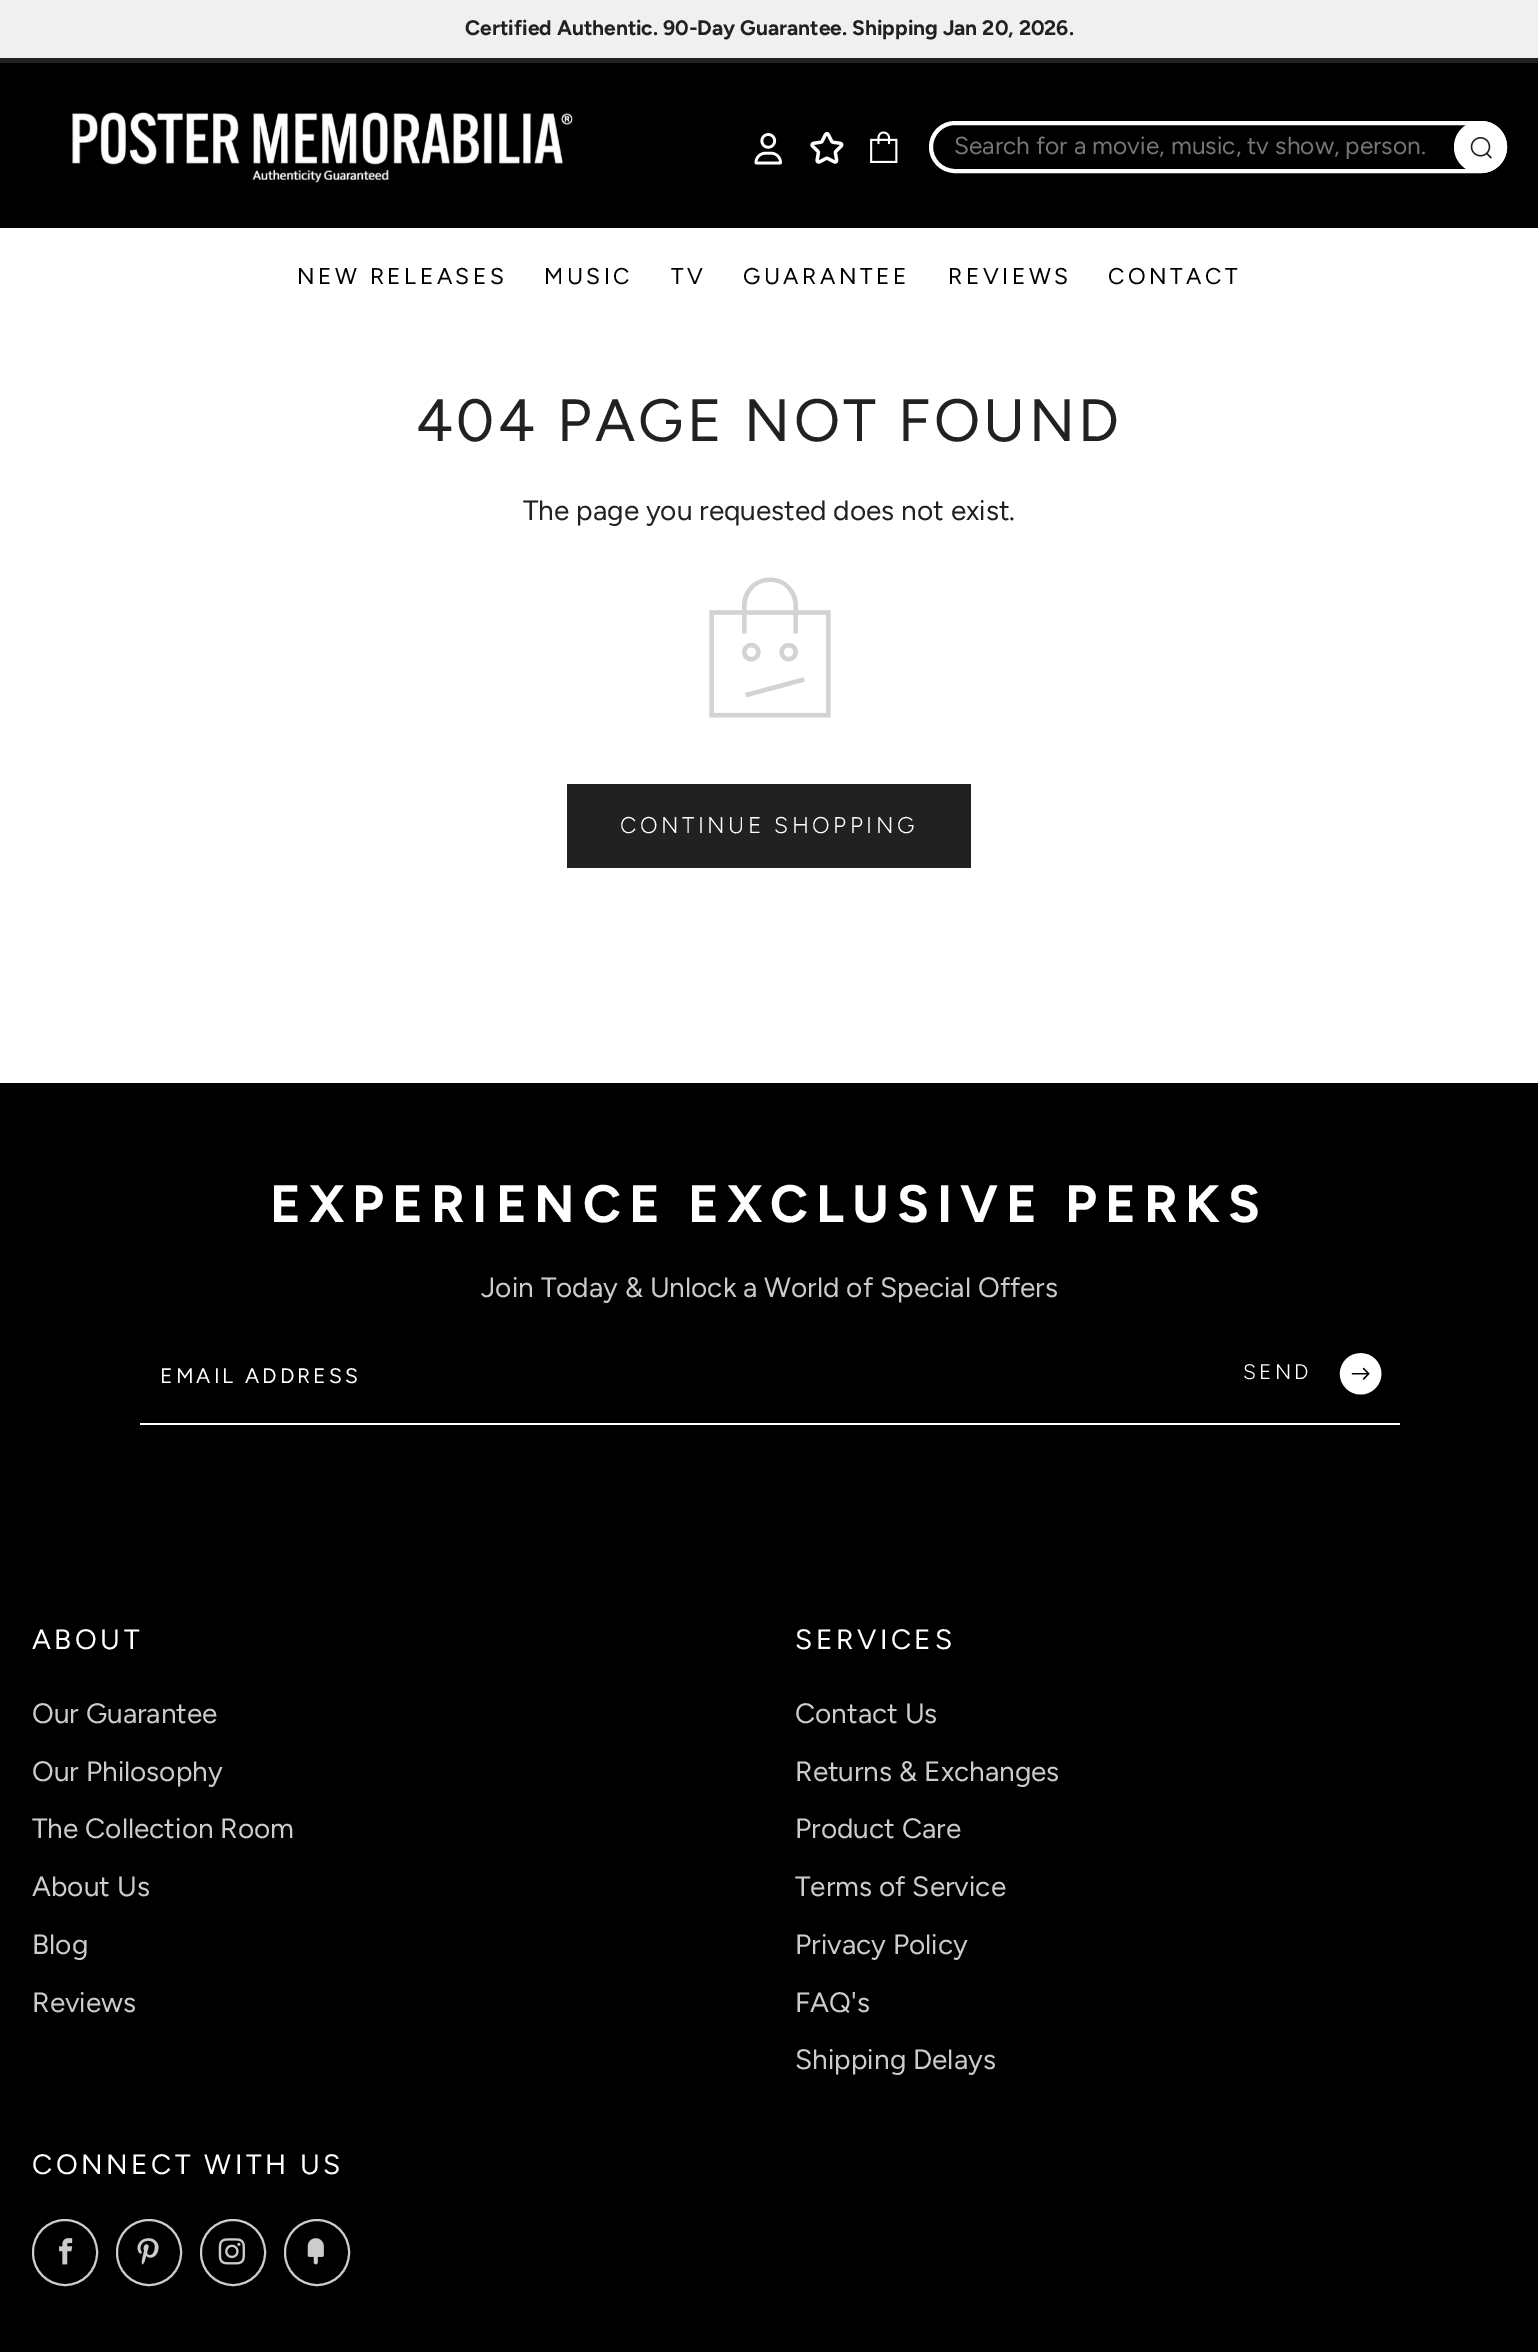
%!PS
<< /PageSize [1538 2352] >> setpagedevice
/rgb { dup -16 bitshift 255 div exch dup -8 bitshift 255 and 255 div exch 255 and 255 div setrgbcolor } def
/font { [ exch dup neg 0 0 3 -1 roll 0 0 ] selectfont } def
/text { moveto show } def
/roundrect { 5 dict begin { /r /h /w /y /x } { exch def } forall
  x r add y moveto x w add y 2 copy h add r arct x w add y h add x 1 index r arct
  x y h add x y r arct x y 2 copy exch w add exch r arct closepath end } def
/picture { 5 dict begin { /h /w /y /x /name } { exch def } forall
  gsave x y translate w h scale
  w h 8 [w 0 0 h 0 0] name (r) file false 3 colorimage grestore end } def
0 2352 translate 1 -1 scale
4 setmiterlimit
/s1 { /Figtree-Bold 21 font 16#212121 rgb } def
/s2 { /Figtree-Regular 24.5 font 16#757575 rgb } def
/s3 { /Figtree-Regular 28 font 16#212121 rgb } def
/s4 { /Figtree-Regular 28 font 16#CCCCCC rgb } def
16#FFFFFF rgb
0 0 1538 2352 rectfill
16#F0F0F0 rgb
0 0 1538 58 rectfill
s1
(Certified Authentic. 90-Day Guarantee. Shipping Jan 20, 2026.) 465 35 text
0 58 1538 5 rectfill
16#000000 rgb
0 63 1538 165 rectfill
(pic1.raw) 72 112 501 71 picture
(pic2.raw) 754 133 28 32 picture
(pic3.raw) 810 131 34 33 picture
(pic4.raw) 870 131 28 32 picture
16#FFFFFF rgb
4 setlinewidth
931 123 574 48 24 roundrect stroke
s2
(Search for a movie, music, tv show, person.) 954 154 text
16#FFFFFF rgb
1454 121 53 52 26 roundrect fill
(pic5.raw) 1470 137 22 22 picture
/Figtree-Regular 22.75 font
16#000000 rgb
297 284 moveto 3.5 0 (NEW RELEASES) ashow
544 284 moveto 3.5 0 (MUSIC) ashow
671 284 moveto 3.5 0 (TV) ashow
743 284 moveto 3.5 0 (GUARANTEE) ashow
948 284 moveto 3.5 0 (REVIEWS) ashow
1108 284 moveto 3.5 0 (CONTACT) ashow
/Figtree-Regular 59.5 font
16#212121 rgb
416 441 moveto 3.5 0 (404 PAGE NOT FOUND) ashow
s3
(The page you requested does not exist.) 523 520 text
(pic6.raw) 709 577 122 141 picture
567 784 404 84 rectfill
/Figtree-Light 22.75 font
16#FFFFFF rgb
620 833 moveto 3.5 0 (CONTINUE SHOPPING) ashow
16#000000 rgb
0 1083 1538 1269 rectfill
/Figtree-Bold 52.5 font
16#FFFFFF rgb
270 1222 moveto 7.9 0 (EXPERIENCE EXCLUSIVE PERKS) ashow
s4
(Join Today & Unlock a World of Special Offers) 481 1297 text
16#FFFFFF rgb
140 1423 1260 2 rectfill
/Figtree-Regular 21 font
160 1383 moveto 3.1 0 (EMAIL ADDRESS) ashow
/Figtree-Light 21 font
1243 1379 moveto 3.1 0 (SEND) ashow
(pic7.raw) 1339 1353 43 42 picture
/Figtree-Regular 28 font
32 1649 moveto 3.5 0 (ABOUT) ashow
s4
(Our Guarantee) 32 1723 text
(Our Philosophy) 32 1781 text
(The Collection Room) 32 1838 text
(About Us) 32 1896 text
(Blog) 32 1954 text
(Reviews) 32 2012 text
16#FFFFFF rgb
795 1649 moveto 3.5 0 (SERVICES) ashow
s4
(Contact Us) 795 1723 text
(Returns & Exchanges) 795 1781 text
(Product Care) 795 1838 text
(Terms of Service) 795 1896 text
(Privacy Policy) 795 1954 text
(FAQ's) 795 2012 text
(Shipping Delays) 795 2069 text
16#FFFFFF rgb
32 2174 moveto 3.5 0 (CONNECT WITH US) ashow
16#CCCCCC rgb
2 setlinewidth
33 2220 64 65 32 roundrect stroke
(pic8.raw) 59 2238 14 27 picture
117 2220 64 65 32 roundrect stroke
(pic9.raw) 137 2238 22 27 picture
201 2220 64 65 32 roundrect stroke
(pic10.raw) 218 2238 27 27 picture
285 2220 64 65 32 roundrect stroke
(pic11.raw) 307 2238 17 27 picture
showpage
